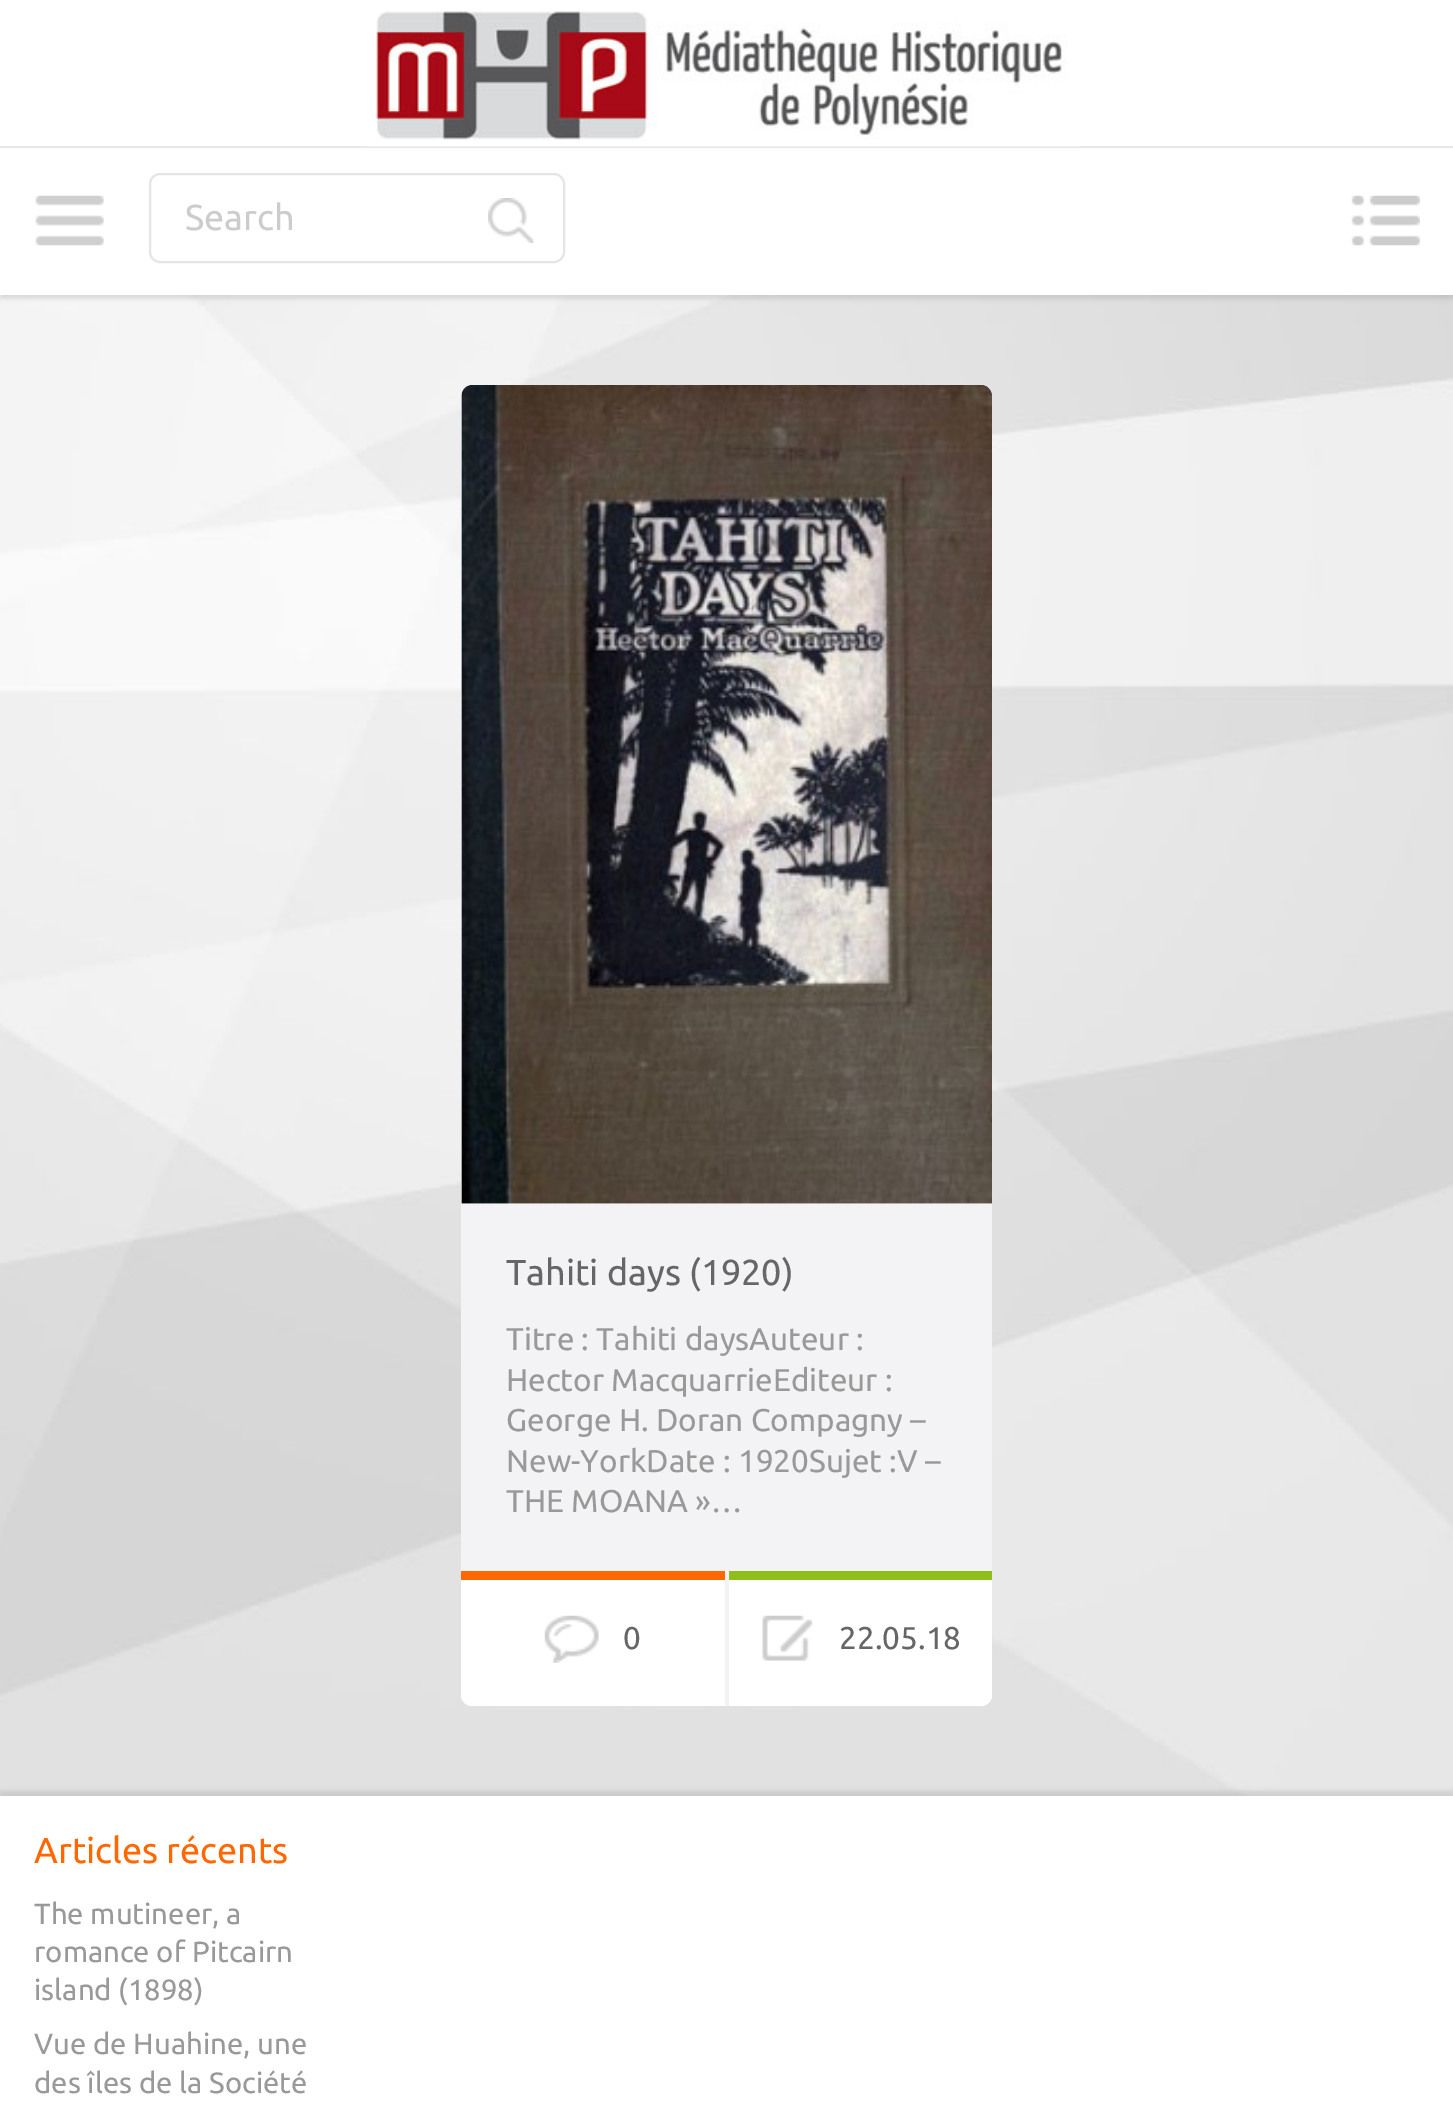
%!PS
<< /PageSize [1453 2107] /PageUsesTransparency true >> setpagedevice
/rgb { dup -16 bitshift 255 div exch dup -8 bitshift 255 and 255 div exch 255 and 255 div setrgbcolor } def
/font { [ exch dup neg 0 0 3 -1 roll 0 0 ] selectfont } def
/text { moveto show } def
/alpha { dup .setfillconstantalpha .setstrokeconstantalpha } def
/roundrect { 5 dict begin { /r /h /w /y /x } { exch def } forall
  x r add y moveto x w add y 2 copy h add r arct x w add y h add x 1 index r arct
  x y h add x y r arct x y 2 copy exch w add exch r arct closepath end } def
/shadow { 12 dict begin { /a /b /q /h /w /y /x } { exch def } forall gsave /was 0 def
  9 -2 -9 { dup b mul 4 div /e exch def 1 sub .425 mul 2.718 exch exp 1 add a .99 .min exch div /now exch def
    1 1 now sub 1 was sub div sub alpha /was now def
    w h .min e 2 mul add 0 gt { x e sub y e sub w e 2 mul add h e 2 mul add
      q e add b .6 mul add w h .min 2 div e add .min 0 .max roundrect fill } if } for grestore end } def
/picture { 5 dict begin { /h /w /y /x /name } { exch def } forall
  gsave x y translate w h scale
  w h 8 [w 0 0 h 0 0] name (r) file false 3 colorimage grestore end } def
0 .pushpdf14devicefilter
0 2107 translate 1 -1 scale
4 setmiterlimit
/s1 { /Ubuntu-Regular 36 font 16#CCCCCC rgb } def
/s2 { /Ubuntu-Regular 36 font 16#666666 rgb } def
/s3 { /Ubuntu-Regular 31.5 font 16#999999 rgb } def
/s4 { /Ubuntu-Regular 31.5 font 16#666666 rgb } def
/s5 { /Ubuntu-Regular 36 font 16#FF6700 rgb } def
/s6 { /Ubuntu-Regular 29.25 font 16#999999 rgb } def
16#FFFFFF rgb
0 0 1453 2107 rectfill
(pic1.raw) 0 295 1453 1501 picture
16#000000 rgb
0 153 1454 146 0 2 0.1 shadow
16#FFFFFF rgb
0 150 1453 145 rectfill
16#E5E7EA rgb
0 146 1453 2 rectfill
(pic2.raw) 365 11 715 136 picture
(pic3.raw) 35 195 69 51 picture
16#E5E5E5 rgb
2 setlinewidth
150 174 414 88 10 roundrect stroke
s1
(Search) 185 230 text
(pic4.raw) 488 198 46 45 picture
(pic5.raw) 1351 195 69 51 picture
16#F3F3F5 rgb
461 385 531 1321 11 roundrect fill
(pic6.raw) 461 385 531 819 picture
s2
(Tahiti days \(1920\)) 506 1285 text
s3
(Titre : Tahiti daysAuteur :) 506 1350 text
(Hector MacquarrieEditeur :) 506 1391 text
(George H. Doran Compagny –) 506 1431 text
(New-YorkDate : 1920Sujet :V –) 506 1472 text
(THE MOANA »…) 506 1512 text
16#FFFFFF rgb
461 1571 moveto 725 1571 lineto 725 1706 lineto 472 1706 lineto 466 1706 461 1701 461 1695 curveto closepath fill
16#FF6700 rgb
461 1571 264 9 rectfill
(pic7.raw) 544 1615 55 48 picture
s4
(0) 623 1649 text
16#FFFFFF rgb
729 1571 moveto 992 1571 lineto 992 1695 lineto 992 1701 987 1706 981 1706 curveto 729 1706 lineto closepath fill
16#8FBE1B rgb
729 1571 263 9 rectfill
(pic8.raw) 762 1615 51 46 picture
s4
(22.05.18) 839 1649 text
16#000000 rgb
0 1791 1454 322 0 2 0.1 shadow
16#FFFFFF rgb
0 1796 1453 311 rectfill
s5
(Articles récents) 34 1863 text
s6
(The mutineer, a) 34 1924 text
(romance of Pitcairn) 34 1962 text
(island \(1898\)) 34 2000 text
(Vue de Huahine, une) 34 2054 text
(des îles de la Société) 34 2093 text
.poppdf14devicefilter showpage
